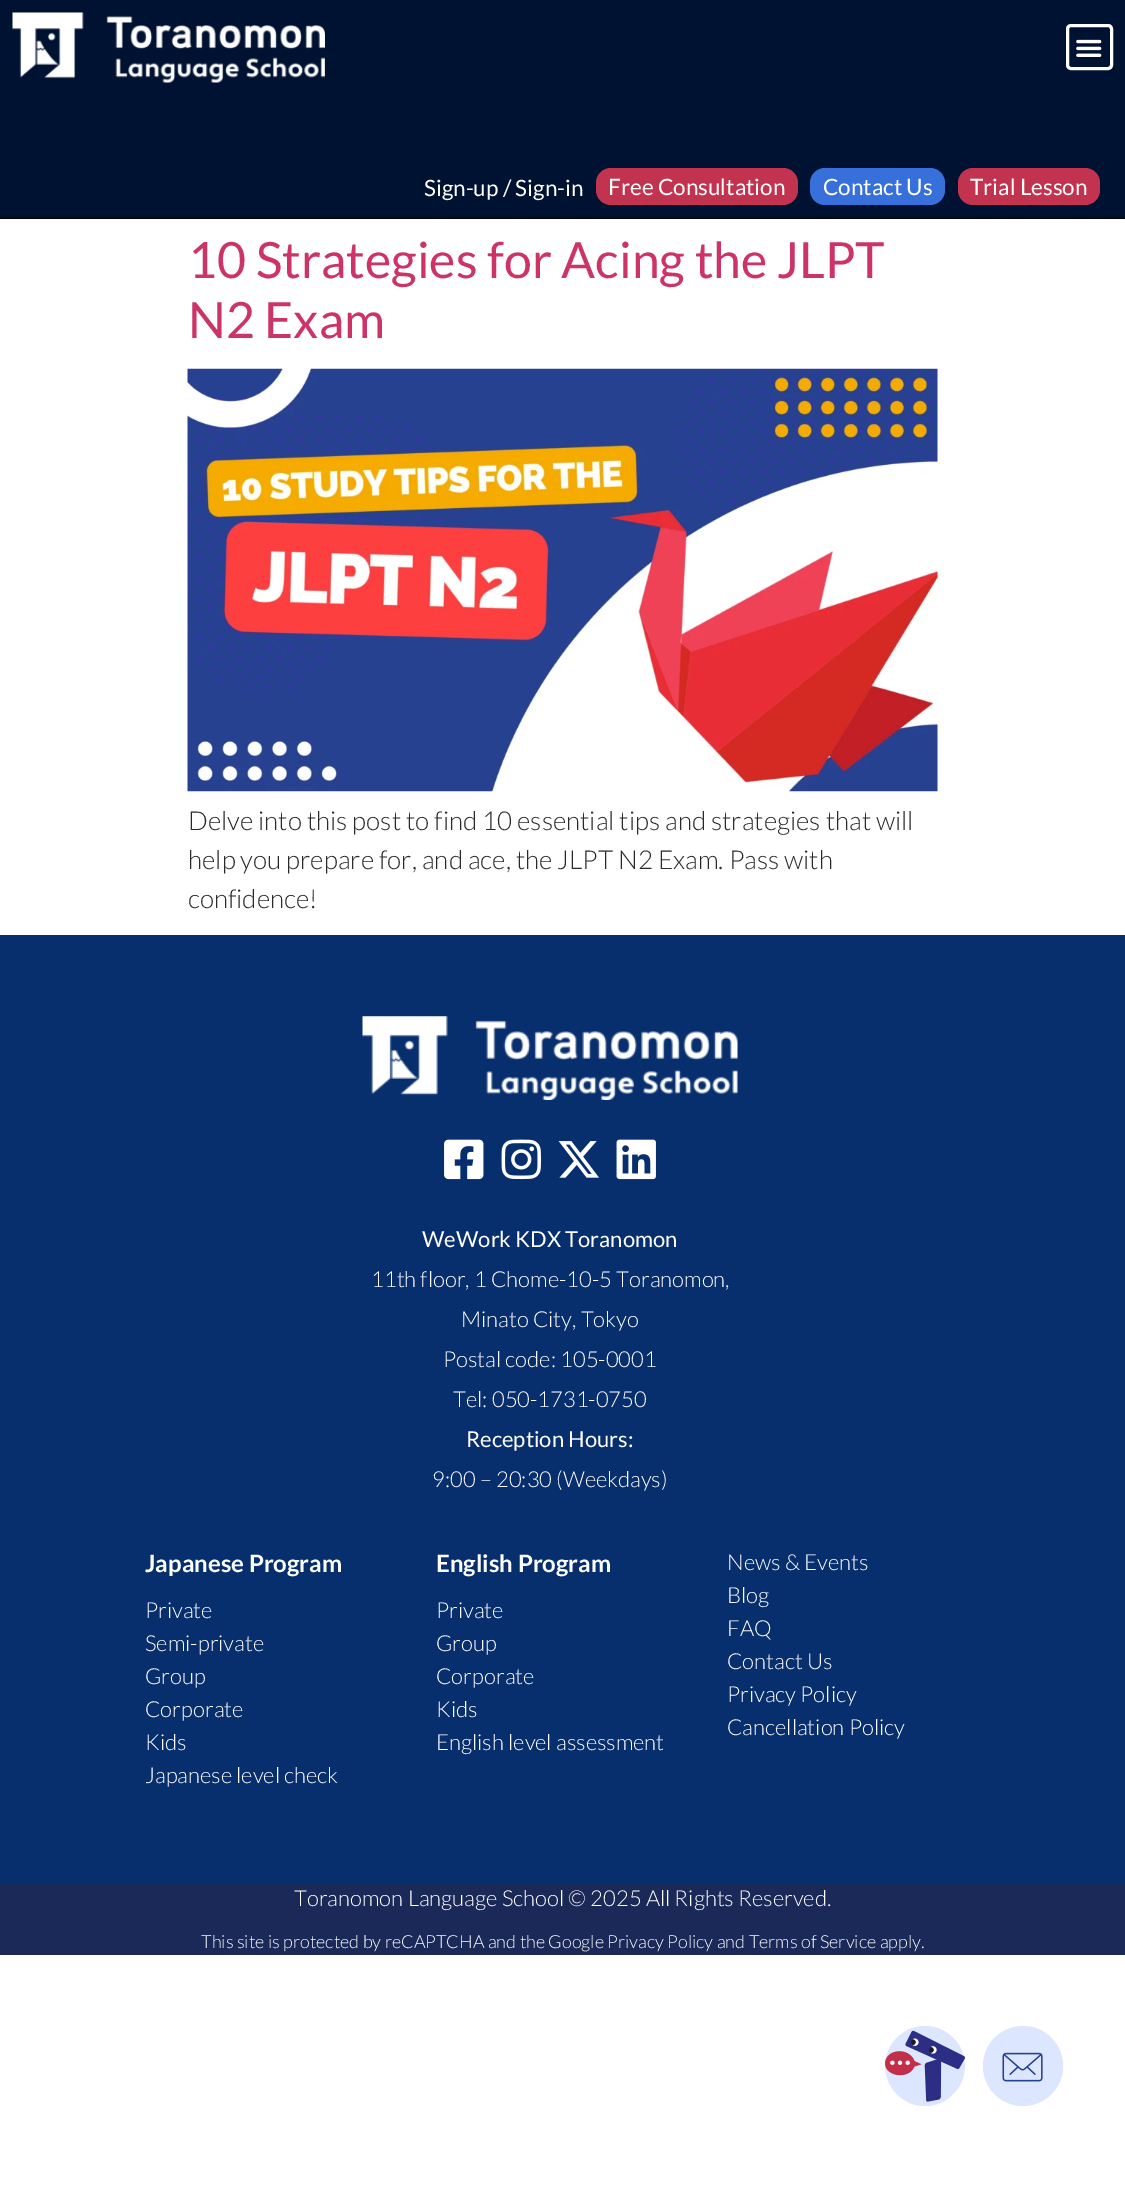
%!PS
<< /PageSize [1125 2189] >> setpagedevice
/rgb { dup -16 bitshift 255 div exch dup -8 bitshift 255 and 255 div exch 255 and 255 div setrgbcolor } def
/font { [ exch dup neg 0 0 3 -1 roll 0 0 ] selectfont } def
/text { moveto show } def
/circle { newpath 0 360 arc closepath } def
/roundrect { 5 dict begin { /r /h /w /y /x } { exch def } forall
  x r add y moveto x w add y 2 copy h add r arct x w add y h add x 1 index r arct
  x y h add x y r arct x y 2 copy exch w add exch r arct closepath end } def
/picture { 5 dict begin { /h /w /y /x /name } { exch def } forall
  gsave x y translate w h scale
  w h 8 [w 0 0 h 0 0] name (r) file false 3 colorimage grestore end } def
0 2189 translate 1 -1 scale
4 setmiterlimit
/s1 { /Lato-Regular 22.5 font 16#FFFFFF rgb } def
/s2 { /Lato-Regular 50 font 16#CC3366 rgb } def
/s3 { /Lato-Light 26 font 16#292929 rgb } def
/s4 { /Lato-Regular 22 font 16#FFFFFF rgb } def
/s5 { /Lato-Light 22 font 16#FFFFFF rgb } def
/s6 { /Lato-Bold 24 font 16#FFFFFF rgb } def
/s7 { /Lato-Light 18 font 16#FFFFFF rgb } def
16#FFFFFF rgb
0 0 1125 2189 rectfill
16#001231 rgb
0 0 1125 218 rectfill
16#000000 rgb
0 218 1125 1 rectfill
(pic1.raw) 12 12 313 71 picture
16#FFFFFF rgb
3 setlinewidth
1067.5 25.5 44 43 3.5 roundrect stroke
(pic2.raw) 1076 39 26 18 picture
s1
(Sign-up / Sign-in) 424 196 text
16#C23350 rgb
596 168 202 37 15 roundrect fill
s1
(Free Consultation) 608 195 text
16#3770DB rgb
810 168 135 37 15 roundrect fill
s1
(Contact Us) 823 195 text
16#C23350 rgb
958 168 142 37 15 roundrect fill
s1
(Trial Lesson) 970 195 text
s2
(10 Strategies for Acing the JLPT) 188 278 text
(N2 Exam) 188 338 text
(pic3.raw) 187 368 751 424 picture
s3
(Delve into this post to find 10 essential tips and strategies that will) 188 830 text
(help you prepare for, and ace, the JLPT N2 Exam. Pass with) 188 869 text
(confidence!) 188 908 text
16#082F6D rgb
0 935 1125 948 rectfill
(pic4.raw) 362 1016 376 84 picture
(pic5.raw) 444 1139 40 41 picture
(pic6.raw) 501 1139 40 41 picture
(pic7.raw) 558 1141 41 37 picture
(pic8.raw) 616 1139 40 41 picture
s4
(WeWork KDX Toranomon) 422 1247 text
s5
(11th floor, 1 Chome-10-5 Toranomon,) 371 1287 text
(Minato City, Tokyo) 461 1327 text
(Postal code: 105-0001) 443 1367 text
(Tel: 050-1731-0750) 453 1407 text
s4
(Reception Hours:) 466 1447 text
s5
(9:00 – 20:30 \(Weekdays\)) 432 1487 text
s6
(Japanese Program) 145 1572 text
s5
(Private) 145 1618 text
(Semi-private) 145 1651 text
(Group) 145 1684 text
(Corporate) 145 1717 text
(Kids) 145 1750 text
(Japanese level check) 145 1783 text
s6
(English Program) 436 1572 text
s5
(Private) 436 1618 text
(Group) 436 1651 text
(Corporate) 436 1684 text
(Kids) 436 1717 text
(English level assessment) 436 1750 text
(News & Events) 727 1570 text
(Blog) 727 1603 text
(FAQ) 727 1636 text
(Contact Us) 727 1669 text
(Privacy Policy) 727 1702 text
(Cancellation Policy) 727 1735 text
16#DDE6FF rgb
925 2066 40 circle fill
(pic9.raw) 885 2030 80 72 picture
1023 2066 40 circle fill
(pic10.raw) 1002 2052 41 30 picture
16#1A2957 rgb
0 1883 1125 72 rectfill
s5
(Toranomon Language School © 2025 All Rights Reserved.) 294 1906 text
s7
(This site is protected by reCAPTCHA and the Google Privacy Policy and Terms of Service apply.) 201 1948 text
showpage
